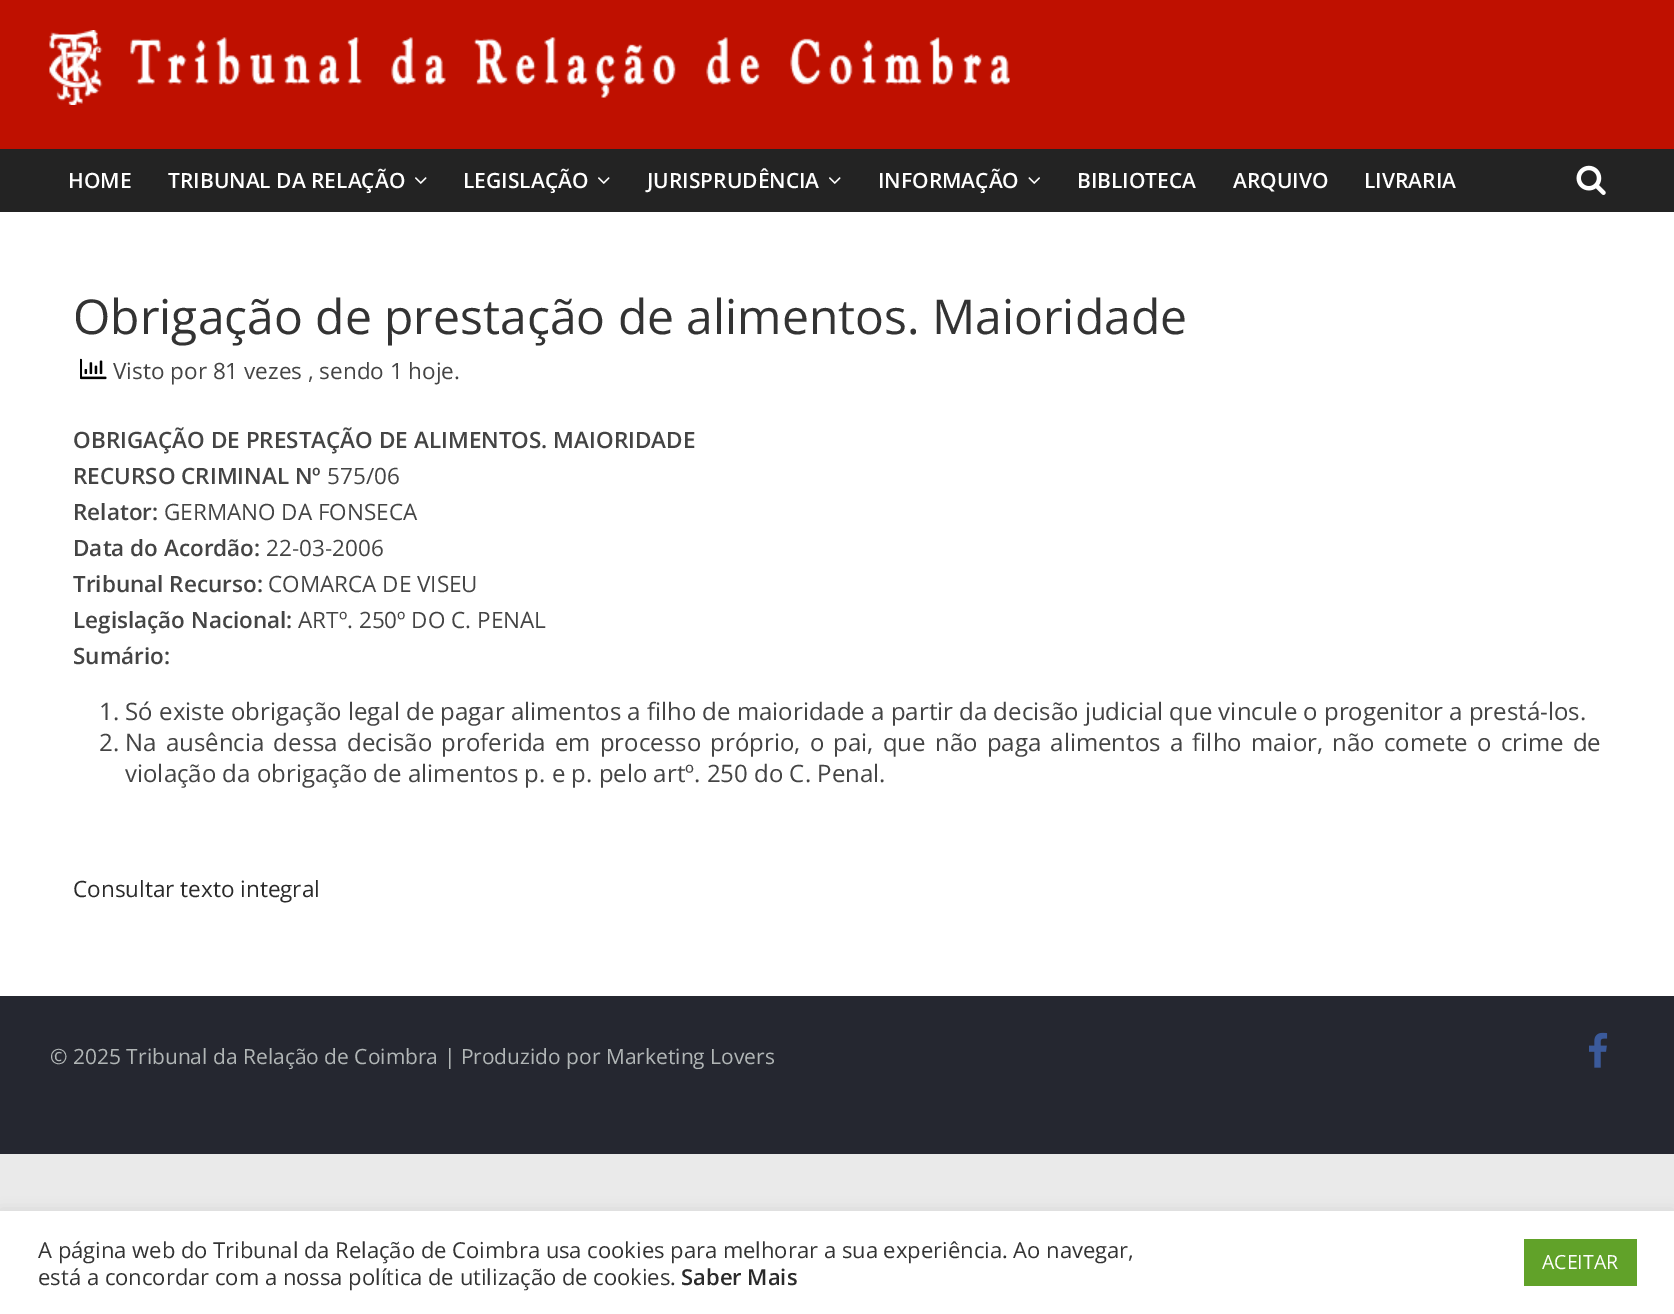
%!PS
<< /PageSize [1674 1314] /PageUsesTransparency true >> setpagedevice
/rgb { dup -16 bitshift 255 div exch dup -8 bitshift 255 and 255 div exch 255 and 255 div setrgbcolor } def
/font { [ exch dup neg 0 0 3 -1 roll 0 0 ] selectfont } def
/text { moveto show } def
/alpha { dup .setfillconstantalpha .setstrokeconstantalpha } def
/roundrect { 5 dict begin { /r /h /w /y /x } { exch def } forall
  x r add y moveto x w add y 2 copy h add r arct x w add y h add x 1 index r arct
  x y h add x y r arct x y 2 copy exch w add exch r arct closepath end } def
/shadow { 12 dict begin { /a /b /q /h /w /y /x } { exch def } forall gsave /was 0 def
  9 -2 -9 { dup b mul 4 div /e exch def 1 sub .425 mul 2.718 exch exp 1 add a .99 .min exch div /now exch def
    1 1 now sub 1 was sub div sub alpha /was now def
    w h .min e 2 mul add 0 gt { x e sub y e sub w e 2 mul add h e 2 mul add
      q e add b .6 mul add w h .min 2 div e add .min 0 .max roundrect fill } if } for grestore end } def
/picture { 5 dict begin { /h /w /y /x /name } { exch def } forall
  gsave x y translate w h scale
  w h 8 [w 0 0 h 0 0] name (r) file false 3 colorimage grestore end } def
0 .pushpdf14devicefilter
0 1314 translate 1 -1 scale
4 setmiterlimit
/s1 { /OpenSans-SemiBold 21 font 16#FFFFFF rgb } def
/s2 { /OpenSans-Regular 48 font 16#333333 rgb } def
/s3 { /OpenSans-Regular 22.5 font 16#444444 rgb } def
/s4 { /OpenSans-SemiBold 22.5 font 16#444444 rgb } def
/s5 { /OpenSans-Regular 24 font 16#444444 rgb } def
/s6 { /OpenSans-Regular 22.5 font 16#2A2A2A rgb } def
/s7 { /OpenSans-Regular 21 font 16#B1B6B6 rgb } def
/s8 { /OpenSans-Regular 22 font 16#333333 rgb } def
/s9 { /OpenSans-SemiBold 22 font 16#2A2A2A rgb } def
/s10 { /OpenSans-Regular 19.5 font 16#FFFFFF rgb } def
16#EAEAEA rgb
0 0 1674 1314 rectfill
16#BF1000 rgb
0 0 1674 149 rectfill
(pic1.raw) 49 30 961 75 picture
16#232323 rgb
0 149 1674 63 rectfill
s1
(HOME) 68 188 text
(TRIBUNAL DA RELAÇÃO) 168 188 text
(pic2.raw) 415 177 12 7 picture
(LEGISLAÇÃO) 463 188 text
(pic2.raw) 598 177 12 7 picture
(JURISPRUDÊNCIA) 647 188 text
(pic2.raw) 829 177 12 7 picture
(INFORMAÇÃO) 878 188 text
(pic3.raw) 1028 177 12 7 picture
(BIBLIOTECA) 1077 188 text
(ARQUIVO) 1233 188 text
(LIVRARIA) 1364 188 text
(pic4.raw) 1576 165 30 30 picture
0 212 1674 784 rectfill
s2
(Obrigação de prestação de alimentos. Maioridade) 73 334 text
(pic5.raw) 80 358 27 22 picture
s3
(Visto por 81 vezes , sendo 1 hoje.) 113 379 text
s4
(OBRIGAÇÃO DE PRESTAÇÃO DE ALIMENTOS. MAIORIDADE) 73 448 text
(RECURSO CRIMINAL Nº) 73 484 text
s3
(575/06) 327 484 text
s4
(Relator:) 73 520 text
s3
(GERMANO DA FONSECA) 164 520 text
s4
(Data do Acordão:) 73 556 text
s3
(22-03-2006) 266 556 text
s4
(Tribunal Recurso:) 73 592 text
s3
(COMARCA DE VISEU) 268 592 text
s4
(Legislação Nacional:) 73 628 text
s3
(ARTº. 250º DO C. PENAL) 298 628 text
s4
(Sumário:) 73 664 text
s5
(1. Só existe obrigação legal de pagar alimentos a filho de maioridade a partir da decisão judicial que vincule o progenitor a prestá-los.) 99 720 text
(2.) 99 751 text
125 751 moveto 3 0 32 (Na ausência dessa decisão proferida em processo próprio, o pai, que não paga alimentos a filho maior, não comete o crime de) widthshow
(violação da obrigação de alimentos p. e p. pelo artº. 250 do C. Penal.) 125 782 text
s6
(Consultar texto integral) 73 897 text
16#252730 rgb
0 996 1674 158 rectfill
s7
(© 2025 Tribunal da Relação de Coimbra | Produzido por Marketing Lovers) 50 1064 text
(pic6.raw) 1589 1032 19 36 picture
16#ACABAB rgb
0 1209 1674 104 0 7.5 0.3 shadow
16#FFFFFF rgb
0 1211 1674 103 rectfill
s8
(A página web do Tribunal da Relação de Coimbra usa cookies para melhorar a sua experiência. Ao navegar,) 38 1258 text
(está a concordar com a nossa política de utilização de cookies.) 38 1285 text
s9
(Saber Mais) 681 1285 text
16#61A229 rgb
1524 1239 113 47 rectfill
s10
(ACEITAR) 1542 1269 text
.poppdf14devicefilter showpage
